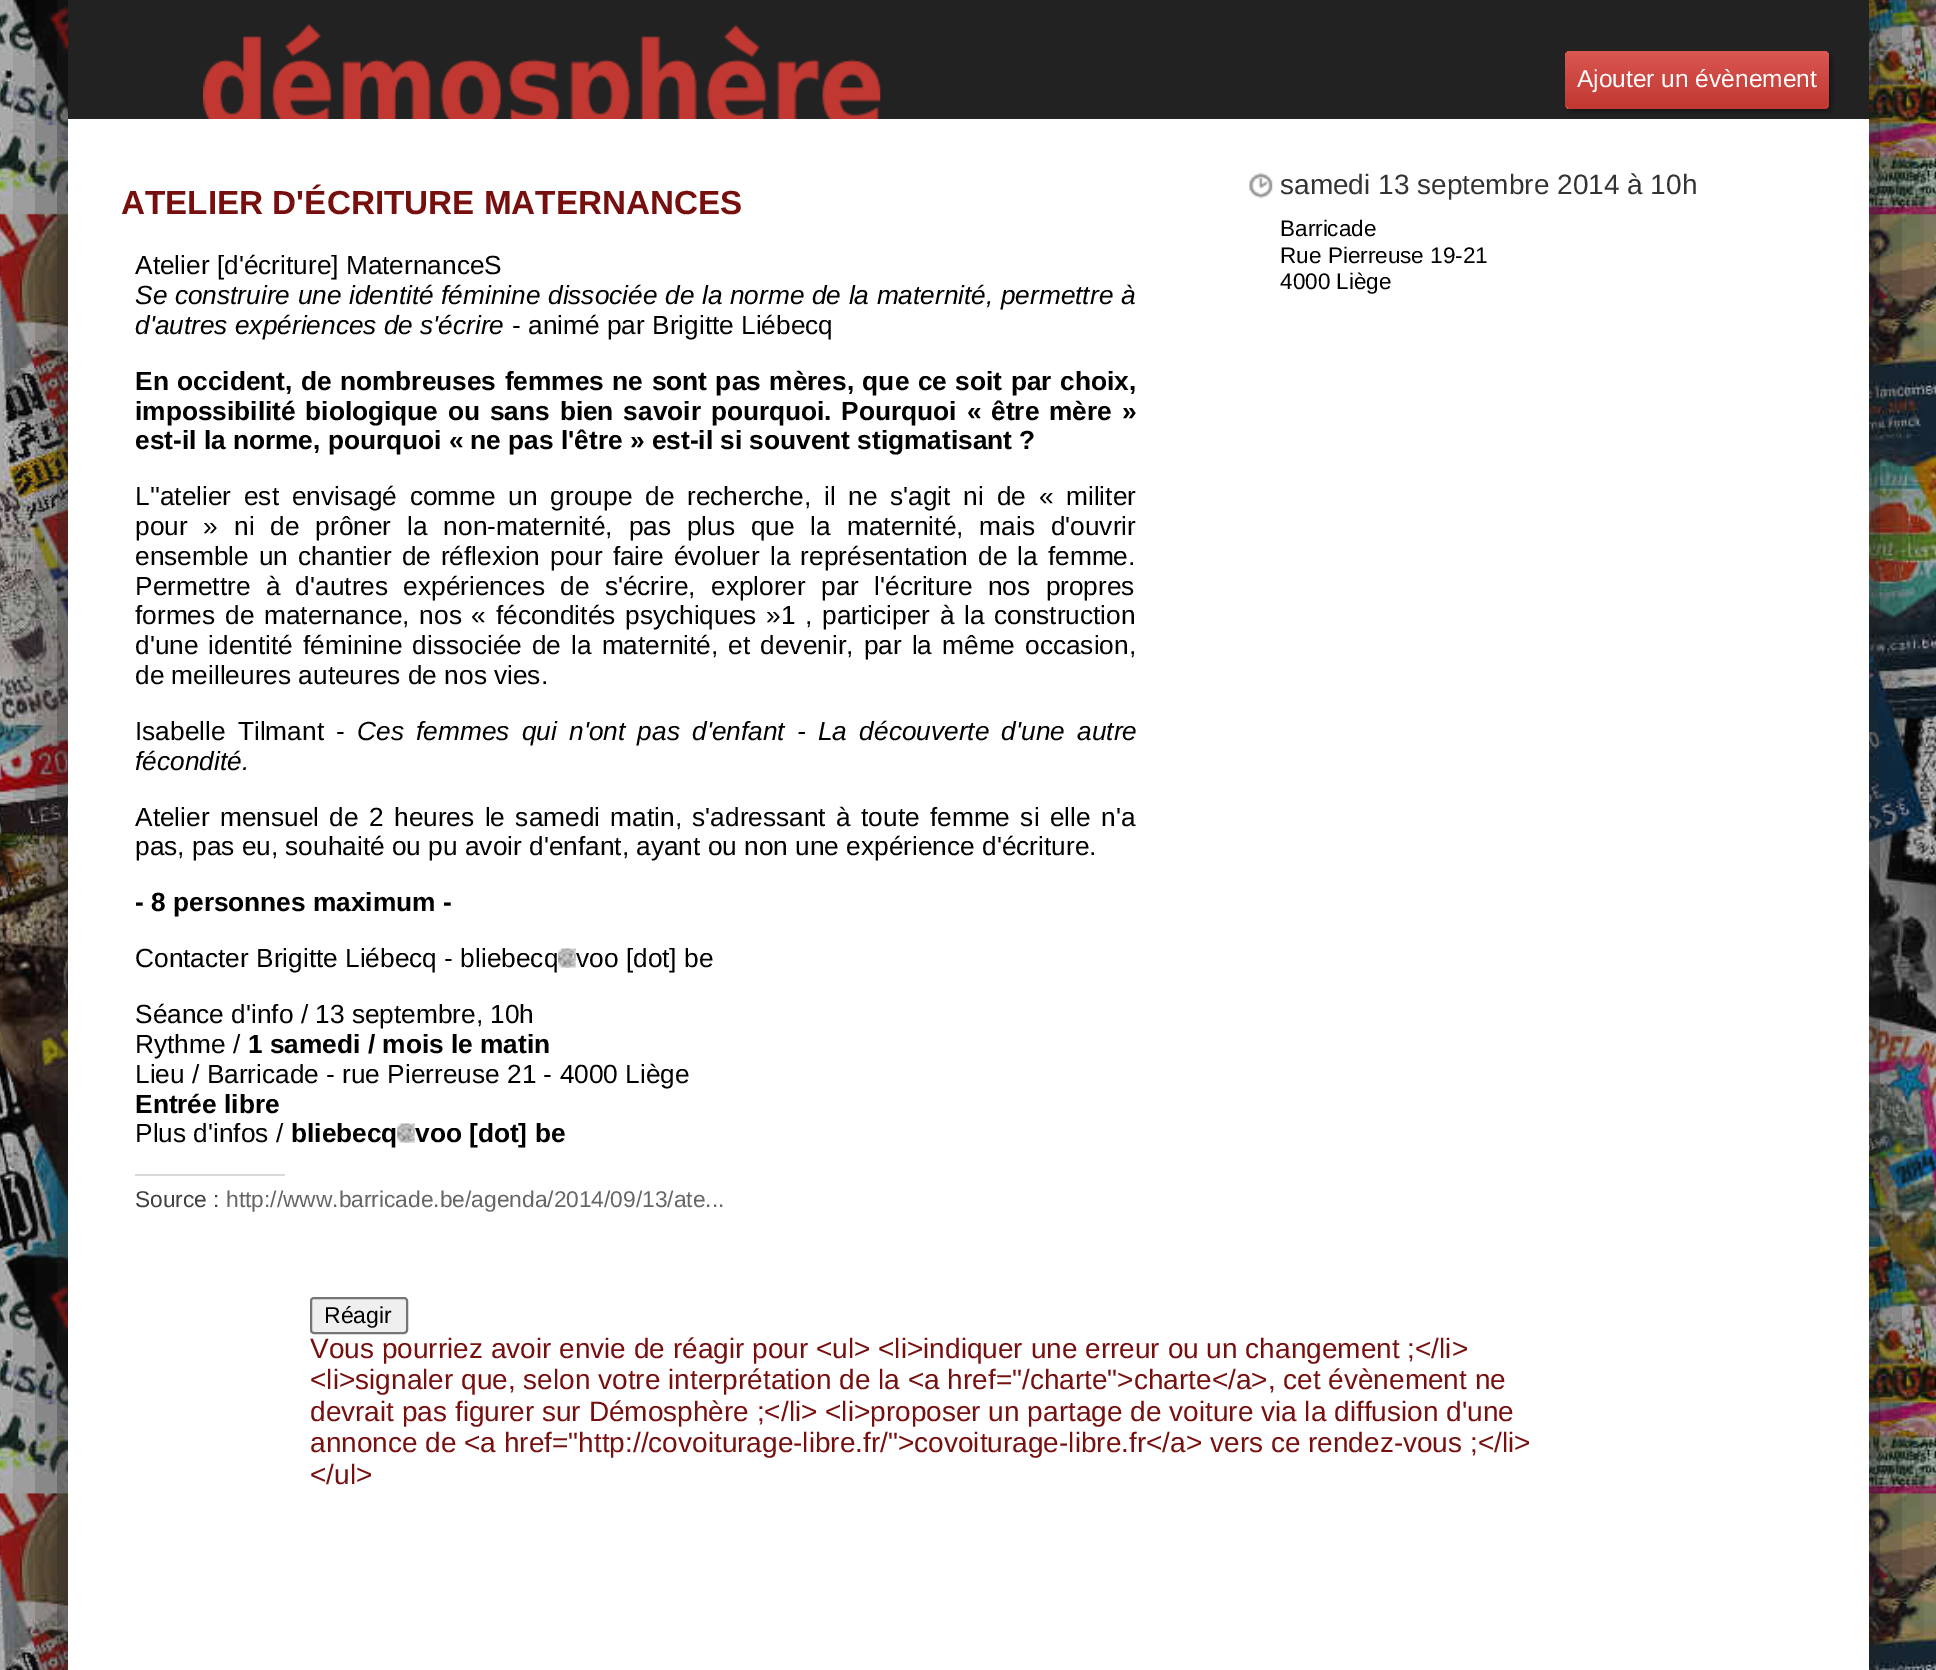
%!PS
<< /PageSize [1936 1670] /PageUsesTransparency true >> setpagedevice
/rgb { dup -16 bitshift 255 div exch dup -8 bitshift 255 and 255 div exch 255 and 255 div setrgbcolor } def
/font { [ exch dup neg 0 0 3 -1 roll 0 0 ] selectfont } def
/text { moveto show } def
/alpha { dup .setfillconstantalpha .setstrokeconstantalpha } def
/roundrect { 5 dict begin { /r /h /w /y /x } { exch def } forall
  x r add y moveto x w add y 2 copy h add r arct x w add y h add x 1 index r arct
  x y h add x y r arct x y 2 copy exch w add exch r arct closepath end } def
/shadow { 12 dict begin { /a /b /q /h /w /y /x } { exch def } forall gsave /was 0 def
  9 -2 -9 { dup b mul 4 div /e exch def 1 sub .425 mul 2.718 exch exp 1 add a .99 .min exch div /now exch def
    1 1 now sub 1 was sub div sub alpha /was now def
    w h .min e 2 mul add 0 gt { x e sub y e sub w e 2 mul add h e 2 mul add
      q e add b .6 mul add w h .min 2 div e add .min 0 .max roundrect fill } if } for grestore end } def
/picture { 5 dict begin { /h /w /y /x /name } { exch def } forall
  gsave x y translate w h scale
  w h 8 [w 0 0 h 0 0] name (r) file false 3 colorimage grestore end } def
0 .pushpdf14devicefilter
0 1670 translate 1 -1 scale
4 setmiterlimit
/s1 { /LiberationSans-Regular 24.5 font 16#FFFFFF rgb } def
/s2 { /LiberationSans-Bold 33.25 font 16#770F0F rgb } def
/s3 { /LiberationSans-Regular 26.25 font 16#000000 rgb } def
/s4 { /LiberationSans-Italic 26.25 font 16#000000 rgb } def
/s5 { /LiberationSans-Bold 26.25 font 16#000000 rgb } def
/s6 { /LiberationSans-Regular 22.75 font 16#404040 rgb } def
/s7 { /LiberationSans-Regular 22.75 font 16#666666 rgb } def
/s8 { /LiberationSans-Regular 28 font 16#333333 rgb } def
/s9 { /LiberationSans-Regular 22.5 font 16#000000 rgb } def
/s10 { /LiberationSans-Regular 23 font 16#000000 rgb } def
/s11 { /LiberationSans-Regular 28 font 16#770F0F rgb } def
16#FFFFFF rgb
0 0 1936 1670 rectfill
(pic1.raw) 0 0 1936 1670 picture
16#222222 rgb
68 -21 1801 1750 0 44 1 shadow
16#FFFFFF rgb
68 119 1801 1551 rectfill
16#222222 rgb
68 0 1801 119 rectfill
(pic2.raw) 203 24 678 95 picture
16#0A0A0A rgb
1568 54 264 58 5 2.5 0.5 shadow
gsave
1565 51 264 58 5 roundrect clip newpath
16#C13832 rgb
1565 51 264 59 5 roundrect fill
grestore
gsave
1565 51 264 58 5 roundrect clip newpath
1565 51 264 59 5 roundrect clip newpath
gsave 1570 51 moveto 1824 51 lineto 1827 51 1829 53 1829 56 curveto 1829 107 lineto 1565 107 lineto 1565 56 lineto 1565 53 1567 51 1570 51 curveto closepath clip newpath
<< /ShadingType 2 /ColorSpace /DeviceRGB /Coords [1697 51 1697 107] /Extend [true true] /Function << /FunctionType 2 /Domain [0 1] /C0 [0.855 0.341 0.322] /C1 [0.757 0.22 0.196] /N 1 >> >> shfill grestore
grestore
gsave
1565 51 264 58 5 roundrect clip newpath
gsave 1565 107 moveto 1829 107 lineto 1829 109 lineto 1565 109 lineto closepath clip newpath
<< /ShadingType 2 /ColorSpace /DeviceRGB /Coords [1697 107 1697 163] /Extend [true true] /Function << /FunctionType 2 /Domain [0 1] /C0 [0.855 0.341 0.322] /C1 [0.757 0.22 0.196] /N 1 >> >> shfill grestore
16#C13832 rgb
1568 107 259 2 rectfill
grestore
s1
(Ajouter un évènement) 1577 87 text
s2
(ATELIER D'ÉCRITURE MATERNANCES) 121 214 text
s3
(Atelier [d'écriture] MaternanceS) 135 274 text
/LiberationSans-Italic 26.25 font
135 304 moveto 0.3 0 32 (Se construire une identité féminine dissociée de la norme de la maternité, permettre à) widthshow
(d'autres expériences de s'écrire) 135 334 text
s3
(- animé par Brigitte Liébecq) 512 334 text
/LiberationSans-Bold 26.25 font
135 390 moveto 1.25 0 32 (En occident, de nombreuses femmes ne sont pas mères, que ce soit par choix,) widthshow
135 420 moveto 2.6 0 32 (impossibilité biologique ou sans bien savoir pourquoi. Pourquoi « être mère ») widthshow
(est-il la norme, pourquoi « ne pas l'être » est-il si souvent stigmatisant ?) 135 449 text
/LiberationSans-Regular 26.25 font
135 505 moveto 5.5 0 32 (L''atelier est envisagé comme un groupe de recherche, il ne s'agit ni de « militer) widthshow
135 535 moveto 8.6 0 32 (pour » ni de prôner la non-maternité, pas plus que la maternité, mais d'ouvrir) widthshow
135 565 moveto 2.75 0 32 (ensemble un chantier de réflexion pour faire évoluer la représentation de la femme.) widthshow
135 595 moveto 8 0 32 (Permettre à d'autres expériences de s'écrire, explorer par l'écriture nos propres) widthshow
135 624 moveto 2.4 0 32 (formes de maternance, nos « fécondités psychiques »1 , participer à la construction) widthshow
135 654 moveto 2.75 0 32 (d'une identité féminine dissociée de la maternité, et devenir, par la même occasion,) widthshow
(de meilleures auteures de nos vies.) 135 684 text
135 740 moveto 5 0 32 (Isabelle Tilmant -) widthshow
/LiberationSans-Italic 26.25 font
357 740 moveto 5 0 32 (Ces femmes qui n'ont pas d'enfant - La découverte d'une autre) widthshow
(fécondité.) 135 770 text
/LiberationSans-Regular 26.25 font
135 826 moveto 3.1 0 32 (Atelier mensuel de 2 heures le samedi matin, s'adressant à toute femme si elle n'a) widthshow
(pas, pas eu, souhaité ou pu avoir d'enfant, ayant ou non une expérience d'écriture.) 135 855 text
s5
(- 8 personnes maximum -) 135 911 text
s3
(Contacter Brigitte Liébecq - bliebecq) 135 967 text
(pic3.raw) 558 948 18 20 picture
(voo [dot] be) 576 967 text
(Séance d'info / 13 septembre, 10h) 135 1023 text
(Rythme /) 135 1053 text
s5
(1 samedi / mois le matin) 248 1053 text
s3
(Lieu / Barricade - rue Pierreuse 21 - 4000 Liège) 135 1083 text
s5
(Entrée libre) 135 1113 text
s3
(Plus d'infos /) 135 1142 text
s5
(bliebecq) 291 1142 text
(pic3.raw) 397 1123 18 20 picture
(voo [dot] be) 415 1142 text
16#D9D9D9 rgb
135 1174 150 2 rectfill
s6
(Source :) 135 1207 text
s7
(http://www.barricade.be/agenda/2014/09/13/ate...) 226 1207 text
(pic4.raw) 1249 172 24 27 picture
s8
(samedi 13 septembre 2014 à 10h) 1280 194 text
s9
(Barricade) 1280 236 text
(Rue Pierreuse 19-21) 1280 263 text
(4000 Liège) 1280 289 text
16#EFEFEF rgb
311 1298 96 35 3 roundrect gsave fill grestore
16#767676 rgb
2 setlinewidth
stroke
s10
(Réagir) 324 1323 text
s11
(Vous pourriez avoir envie de réagir pour <ul> <li>indiquer une erreur ou un changement ;</li>) 310 1358 text
(<li>signaler que, selon votre interprétation de la <a href="/charte">charte</a>, cet évènement ne) 310 1389 text
(devrait pas figurer sur Démosphère ;</li> <li>proposer un partage de voiture via la diffusion d'une) 310 1421 text
(annonce de <a href="http://covoiturage-libre.fr/">covoiturage-libre.fr</a> vers ce rendez-vous ;</li>) 310 1452 text
(</ul>) 310 1484 text
.poppdf14devicefilter showpage
